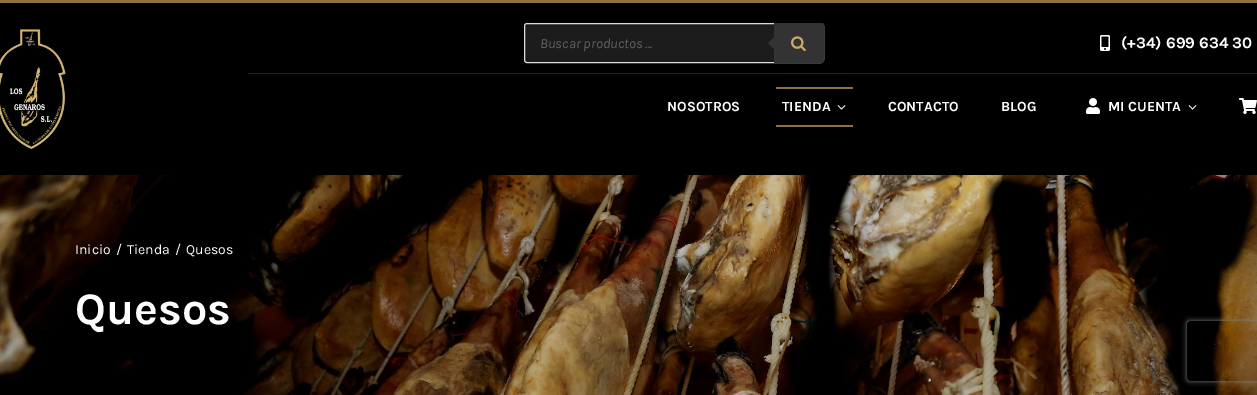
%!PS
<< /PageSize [1257 395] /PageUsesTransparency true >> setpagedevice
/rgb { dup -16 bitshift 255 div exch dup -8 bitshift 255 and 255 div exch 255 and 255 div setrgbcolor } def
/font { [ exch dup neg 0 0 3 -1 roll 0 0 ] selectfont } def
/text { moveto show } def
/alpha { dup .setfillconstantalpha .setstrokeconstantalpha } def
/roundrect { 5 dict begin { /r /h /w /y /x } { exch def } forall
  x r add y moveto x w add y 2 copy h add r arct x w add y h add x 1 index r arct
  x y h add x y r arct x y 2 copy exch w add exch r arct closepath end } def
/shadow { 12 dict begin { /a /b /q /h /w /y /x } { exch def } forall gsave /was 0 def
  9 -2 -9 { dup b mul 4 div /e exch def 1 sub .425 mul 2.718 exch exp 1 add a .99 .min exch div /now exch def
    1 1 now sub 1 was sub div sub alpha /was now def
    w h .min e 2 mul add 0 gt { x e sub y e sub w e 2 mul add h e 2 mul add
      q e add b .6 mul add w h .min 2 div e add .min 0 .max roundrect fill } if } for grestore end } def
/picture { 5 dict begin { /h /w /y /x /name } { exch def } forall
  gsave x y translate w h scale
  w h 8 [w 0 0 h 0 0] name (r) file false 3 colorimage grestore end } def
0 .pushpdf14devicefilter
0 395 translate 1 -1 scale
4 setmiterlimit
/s1 { /Karla-Italic 14 font 16#606060 rgb } def
/s2 { /Karla-Bold 16 font 16#FFFFFF rgb } def
/s3 { /Karla-Bold 14 font 16#FFFFFF rgb } def
/s4 { /Karla-Regular 14 font 16#FFFFFF rgb } def
/s5 { /Karla-Bold 45 font 16#FFFFFF rgb } def
16#FFFFFF rgb
0 0 1257 395 rectfill
16#000000 rgb
0 3 1257 172 rectfill
16#8E7141 rgb
0 0 1257 3 rectfill
(pic1.raw) 0 29 66 120 picture
16#1C1C1C rgb
524.5 23.5 299 39 2.5 roundrect gsave fill grestore
16#DDDDDD rgb
stroke
s1
(Buscar productos ...) 540 48 text
16#333333 rgb
774 23 moveto 822 23 lineto 823 23 824 24 824 25 curveto 824 61 lineto 824 62 823 63 822 63 curveto 774 63 lineto closepath fill
776 35 moveto 776 51 lineto 768 43 lineto closepath fill
(pic2.raw) 791 36 15 15 picture
(pic3.raw) 1100 35 10 16 picture
s2
(\(+34\) 699 634 30) 1121 48 text
16#282213 rgb
248 73 1009 1 rectfill
s3
(NOSOTROS) 667 111 text
16#8E7141 rgb
776 87 77 2 rectfill
776 125 77 2 rectfill
s3
(TIENDA) 782 111 text
(pic4.raw) 837 105 9 5 picture
(CONTACTO) 888 111 text
(BLOG) 1001 111 text
(pic5.raw) 1086 98 14 16 picture
(MI CUENTA) 1108 111 text
(pic4.raw) 1188 105 9 5 picture
(pic6.raw) 1239 98 18 16 picture
(pic7.raw) 0 175 1257 220 picture
s4
(Inicio) 75 254 text
(/) 116 254 text
(Tienda) 127 254 text
(/) 175 254 text
(Quesos) 186 254 text
s5
(Quesos) 75 324 text
gsave
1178 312 moveto 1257 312 lineto 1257 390 lineto 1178 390 lineto closepath 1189 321 moveto 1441 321 lineto 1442 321 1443 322 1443 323 curveto 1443 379 lineto 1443 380 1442 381 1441 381 curveto 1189 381 lineto 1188 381 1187 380 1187 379 curveto 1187 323 lineto 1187 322 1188 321 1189 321 curveto closepath eoclip newpath
16#808080 rgb
1187 321 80 60 2 2.5 1 shadow
grestore
.poppdf14devicefilter showpage
